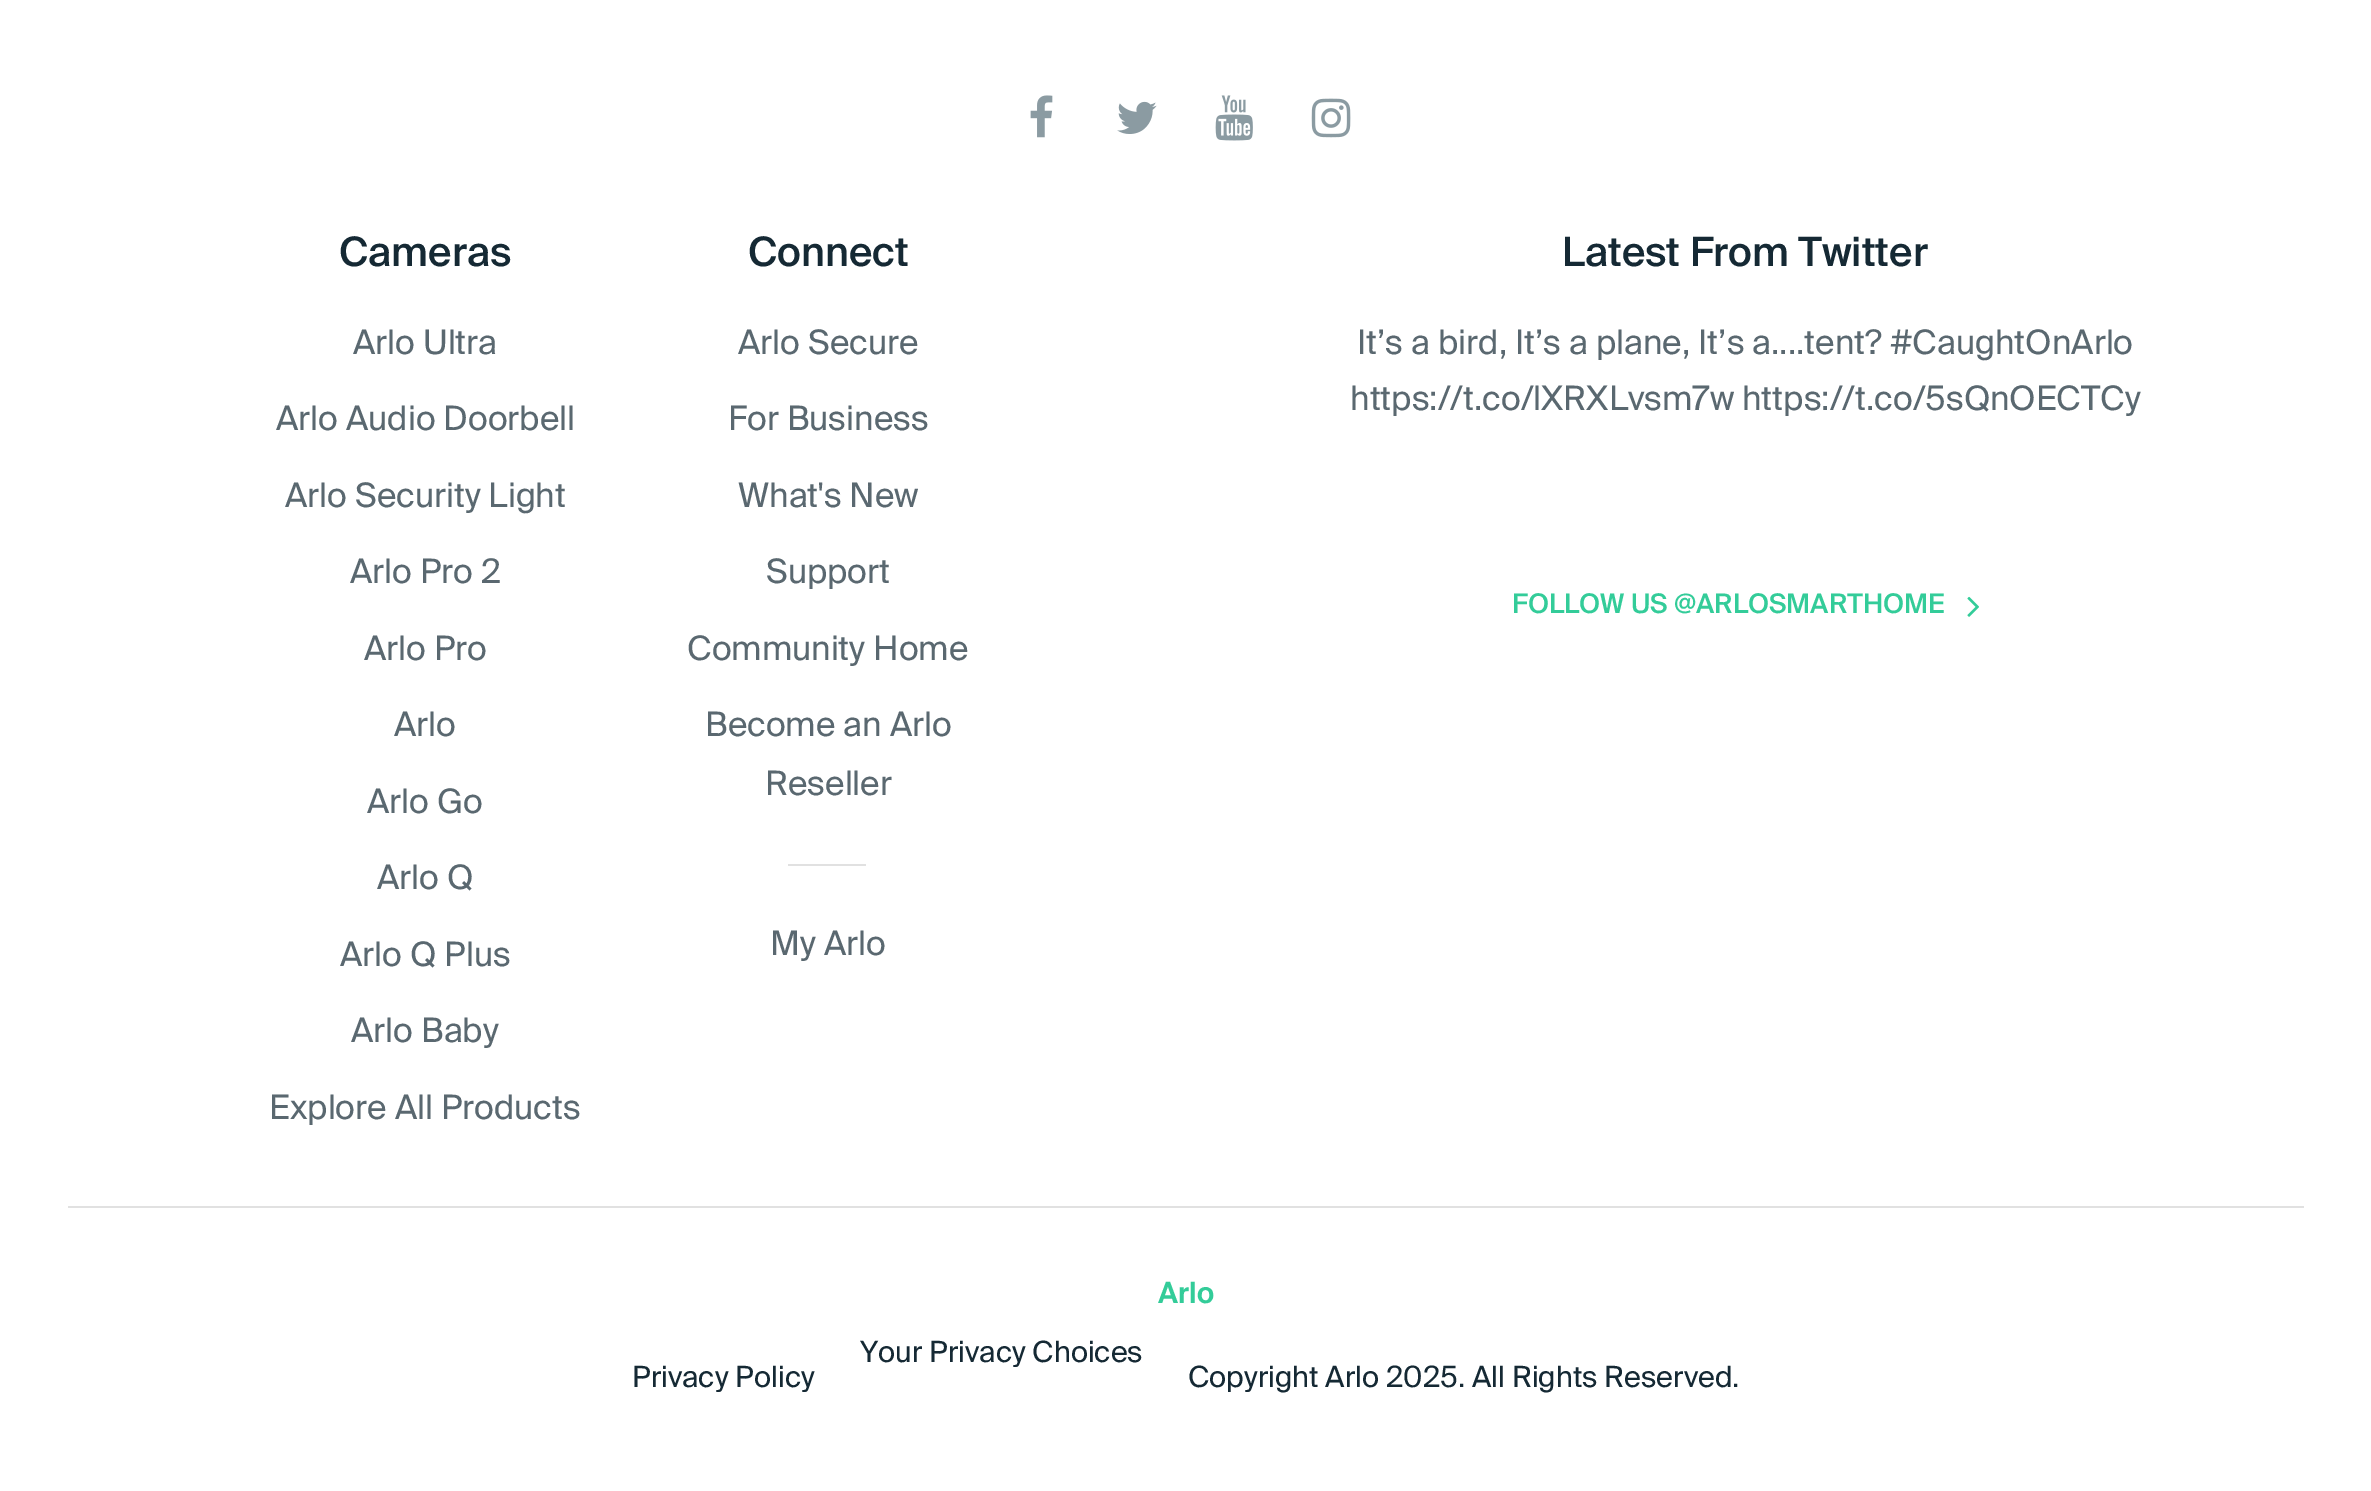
%!PS
<< /PageSize [2371 1491] >> setpagedevice
/rgb { dup -16 bitshift 255 div exch dup -8 bitshift 255 and 255 div exch 255 and 255 div setrgbcolor } def
/font { [ exch dup neg 0 0 3 -1 roll 0 0 ] selectfont } def
/text { moveto show } def
/picture { 5 dict begin { /h /w /y /x /name } { exch def } forall
  gsave x y translate w h scale
  w h 8 [w 0 0 h 0 0] name (r) file false 3 colorimage grestore end } def
0 1491 translate 1 -1 scale
4 setmiterlimit
/s1 { /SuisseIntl-Medium 40.5 font 16#152934 rgb } def
/s2 { /SuisseIntl-Regular 33.75 font 16#5A6870 rgb } def
/s3 { /SuisseIntl-Medium 27 font 16#33CC99 rgb } def
/s4 { /SuisseIntl-SemiBold 29.25 font 16#33CC99 rgb } def
/s5 { /SuisseIntl-Regular 29.25 font 16#152934 rgb } def
16#FFFFFF rgb
0 0 2371 1491 rectfill
(pic1.raw) 1030 95 23 43 picture
(pic2.raw) 1117 101 40 33 picture
(pic3.raw) 1215 95 38 46 picture
(pic4.raw) 1311 98 40 40 picture
s1
(Cameras) 339 266 text
s2
(Arlo Ultra) 353 354 text
(Arlo Audio Doorbell) 276 430 text
(Arlo Security Light) 285 507 text
(Arlo Pro 2) 350 583 text
(Arlo Pro) 364 660 text
(Arlo) 394 736 text
(Arlo Go) 367 813 text
(Arlo Q) 377 889 text
(Arlo Q Plus) 340 966 text
(Arlo Baby) 351 1042 text
(Explore All Products) 269 1119 text
s1
(Connect) 748 266 text
s2
(Arlo Secure) 738 354 text
(For Business) 728 430 text
(What's New) 738 507 text
(Support) 766 583 text
(Community Home) 687 660 text
(Become an Arlo) 705 736 text
(Reseller) 765 795 text
16#E1E1E1 rgb
788 864 78 2 rectfill
s2
(My Arlo) 770 955 text
s1
(Latest From Twitter) 1562 266 text
s2
(It’s a bird, It’s a plane, It’s a....tent? #CaughtOnArlo) 1357 354 text
(https://t.co/lXRXLvsm7w https://t.co/5sQnOECTCy) 1350 410 text
s3
(FOLLOW US @ARLOSMARTHOME) 1512 613 text
(pic5.raw) 1967 596 12 21 picture
16#E1E1E1 rgb
68 1206 2236 2 rectfill
s4
(Arlo) 1158 1303 text
s5
(Your Privacy Choices) 860 1362 text
(Privacy Policy) 632 1387 text
(Copyright Arlo 2025. All Rights Reserved.) 1188 1387 text
showpage
